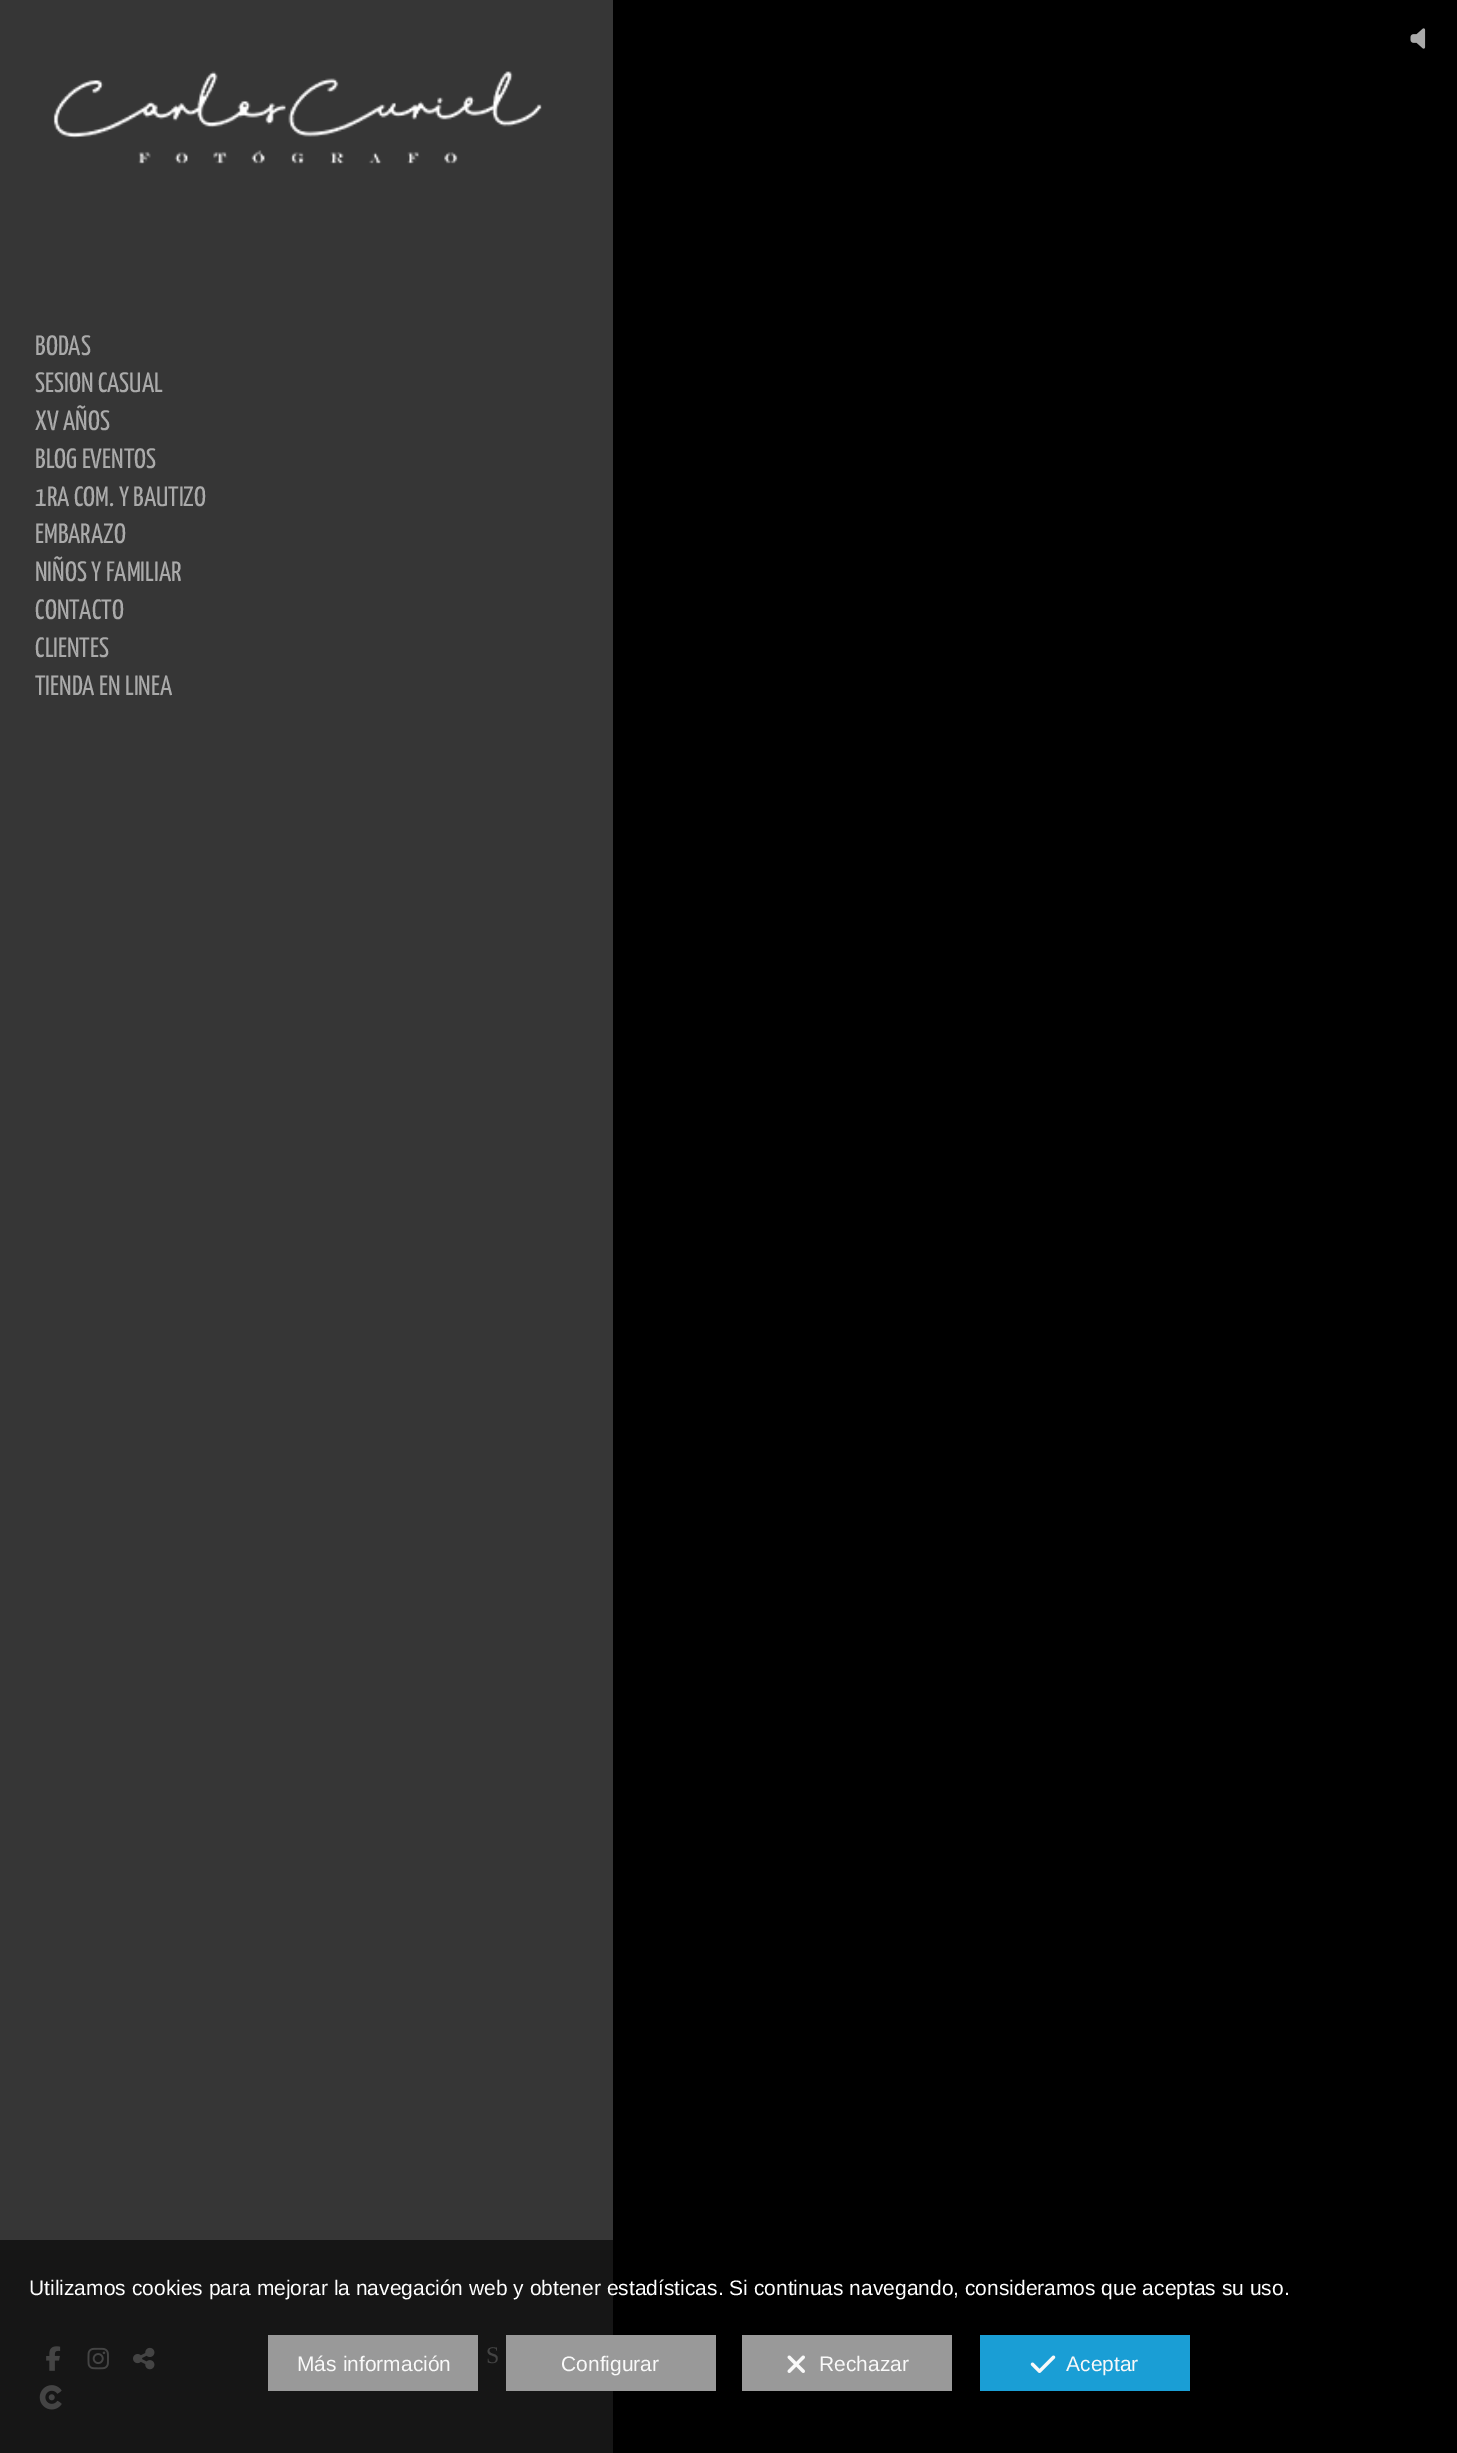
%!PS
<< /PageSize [1457 2453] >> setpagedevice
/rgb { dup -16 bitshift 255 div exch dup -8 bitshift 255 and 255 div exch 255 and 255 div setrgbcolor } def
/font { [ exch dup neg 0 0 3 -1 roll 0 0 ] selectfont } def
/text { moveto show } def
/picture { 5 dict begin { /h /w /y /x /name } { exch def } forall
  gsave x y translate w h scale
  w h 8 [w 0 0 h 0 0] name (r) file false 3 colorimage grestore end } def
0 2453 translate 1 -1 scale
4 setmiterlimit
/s1 { /YanoneKaffeesatz-ExtraLight 28 font 16#AAAAAA rgb } def
/s2 { /LiberationSerif-Regular 24 font 16#444444 rgb } def
/s3 { /LiberationSans-Regular 21 font 16#FFFFFF rgb } def
/s4 { /LiberationSans-Regular 21 font 16#F9F9F9 rgb } def
16#000000 rgb
0 0 1457 2453 rectfill
16#363636 rgb
0 0 613 2240 rectfill
16#161616 rgb
0 2240 613 213 rectfill
(pic1.raw) 53 71 489 93 picture
s1
(BODAS) 35 355 text
(SESION CASUAL) 35 392 text
(XV AÑOS) 35 430 text
(BLOG EVENTOS) 35 468 text
(1RA COM. Y BAUTIZO) 35 506 text
(EMBARAZO) 35 543 text
(NIÑOS Y FAMILIAR) 35 581 text
(CONTACTO) 35 619 text
(CLIENTES) 35 657 text
(TIENDA EN LINEA) 35 695 text
(pic2.raw) 1410 28 16 21 picture
(pic3.raw) 46 2346 15 25 picture
(pic4.raw) 87 2347 22 23 picture
(pic5.raw) 133 2347 22 23 picture
s2
(S) 486 2363 text
(pic6.raw) 39 2385 23 25 picture
s3
(Utilizamos cookies para mejorar la navegación web y obtener estadísticas. Si continuas navegando, consideramos que aceptas su uso.) 29 2295 text
16#999999 rgb
268 2335 210 56 rectfill
s4
(Más información) 297 2371 text
16#999999 rgb
506 2335 210 56 rectfill
s4
(Configurar) 561 2371 text
16#999999 rgb
742 2335 210 56 rectfill
(pic7.raw) 787 2355 18 18 picture
s4
(Rechazar) 819 2371 text
16#1A9ED5 rgb
980 2335 210 56 rectfill
(pic8.raw) 1030 2355 26 18 picture
s4
(Aceptar) 1066 2371 text
showpage
